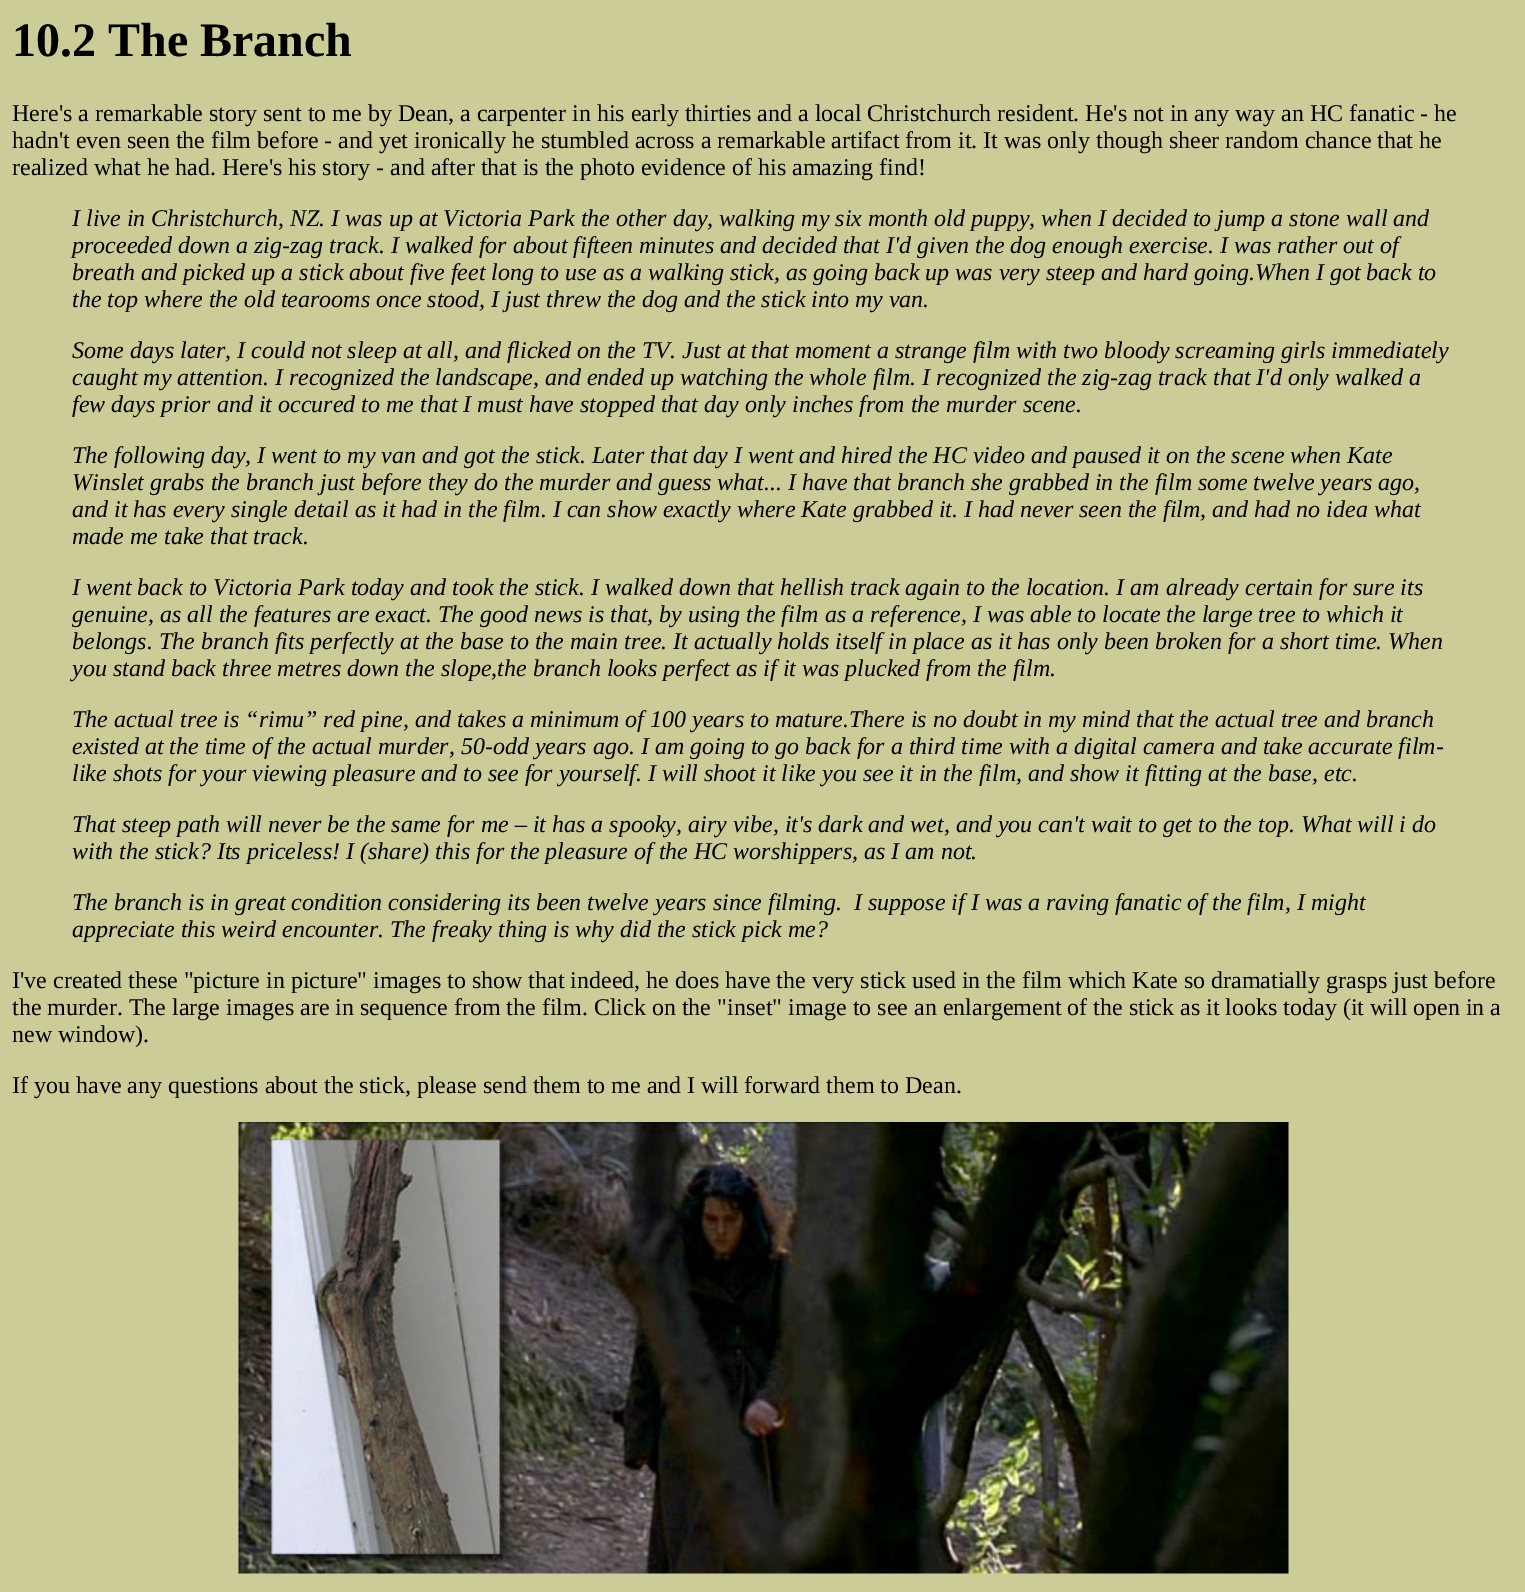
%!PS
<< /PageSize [1525 1592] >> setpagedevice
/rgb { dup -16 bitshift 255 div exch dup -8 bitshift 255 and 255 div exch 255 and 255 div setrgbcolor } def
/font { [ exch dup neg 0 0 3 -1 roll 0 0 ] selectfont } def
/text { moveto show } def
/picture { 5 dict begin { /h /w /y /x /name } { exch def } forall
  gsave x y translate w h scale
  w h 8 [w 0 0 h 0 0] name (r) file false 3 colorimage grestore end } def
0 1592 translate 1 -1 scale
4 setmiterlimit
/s1 { /LiberationSerif-Bold 48 font 16#000000 rgb } def
/s2 { /LiberationSerif-Regular 24 font 16#000000 rgb } def
/s3 { /LiberationSerif-Italic 24 font 16#000000 rgb } def
16#CCCC99 rgb
0 0 1525 1592 rectfill
s1
(10.2 The Branch) 12 56 text
s2
(Here's a remarkable story sent to me by Dean, a carpenter in his early thirties and a local Christchurch resident. He's not in any way an HC fanatic - he) 12 121 text
(hadn't even seen the film before - and yet ironically he stumbled across a remarkable artifact from it. It was only though sheer random chance that he) 12 148 text
(realized what he had. Here's his story - and after that is the photo evidence of his amazing find!) 12 175 text
s3
(I live in Christchurch, NZ. I was up at Victoria Park the other day, walking my six month old puppy, when I decided to jump a stone wall and) 72 226 text
(proceeded down a zig-zag track. I walked for about fifteen minutes and decided that I'd given the dog enough exercise. I was rather out of) 72 253 text
(breath and picked up a stick about five feet long to use as a walking stick, as going back up was very steep and hard going.When I got back to) 72 280 text
(the top where the old tearooms once stood, I just threw the dog and the stick into my van.) 72 307 text
(Some days later, I could not sleep at all, and flicked on the TV. Just at that moment a strange film with two bloody screaming girls immediately) 72 358 text
(caught my attention. I recognized the landscape, and ended up watching the whole film. I recognized the zig-zag track that I'd only walked a) 72 385 text
(few days prior and it occured to me that I must have stopped that day only inches from the murder scene.) 72 412 text
(The following day, I went to my van and got the stick. Later that day I went and hired the HC video and paused it on the scene when Kate) 72 463 text
(Winslet grabs the branch just before they do the murder and guess what... I have that branch she grabbed in the film some twelve years ago,) 72 490 text
(and it has every single detail as it had in the film. I can show exactly where Kate grabbed it. I had never seen the film, and had no idea what) 72 517 text
(made me take that track.) 72 544 text
(I went back to Victoria Park today and took the stick. I walked down that hellish track again to the location. I am already certain for sure its) 72 595 text
(genuine, as all the features are exact. The good news is that, by using the film as a reference, I was able to locate the large tree to which it) 72 622 text
(belongs. The branch fits perfectly at the base to the main tree. It actually holds itself in place as it has only been broken for a short time. When) 72 649 text
(you stand back three metres down the slope,the branch looks perfect as if it was plucked from the film.) 72 676 text
(The actual tree is “rimu” red pine, and takes a minimum of 100 years to mature.There is no doubt in my mind that the actual tree and branch) 72 727 text
(existed at the time of the actual murder, 50-odd years ago. I am going to go back for a third time with a digital camera and take accurate film-) 72 754 text
(like shots for your viewing pleasure and to see for yourself. I will shoot it like you see it in the film, and show it fitting at the base, etc.) 72 781 text
(That steep path will never be the same for me – it has a spooky, airy vibe, it's dark and wet, and you can't wait to get to the top. What will i do) 72 832 text
(with the stick? Its priceless! I \(share\) this for the pleasure of the HC worshippers, as I am not.) 72 859 text
(The branch is in great condition considering its been twelve years since filming.  I suppose if I was a raving fanatic of the film, I might) 72 910 text
(appreciate this weird encounter. The freaky thing is why did the stick pick me?) 72 937 text
s2
(I've created these "picture in picture" images to show that indeed, he does have the very stick used in the film which Kate so dramatially grasps just before) 12 988 text
(the murder. The large images are in sequence from the film. Click on the "inset" image to see an enlargement of the stick as it looks today \(it will open in a) 12 1015 text
(new window\).) 12 1042 text
(If you have any questions about the stick, please send them to me and I will forward them to Dean.) 12 1093 text
(pic1.raw) 238 1122 1051 452 picture
showpage
